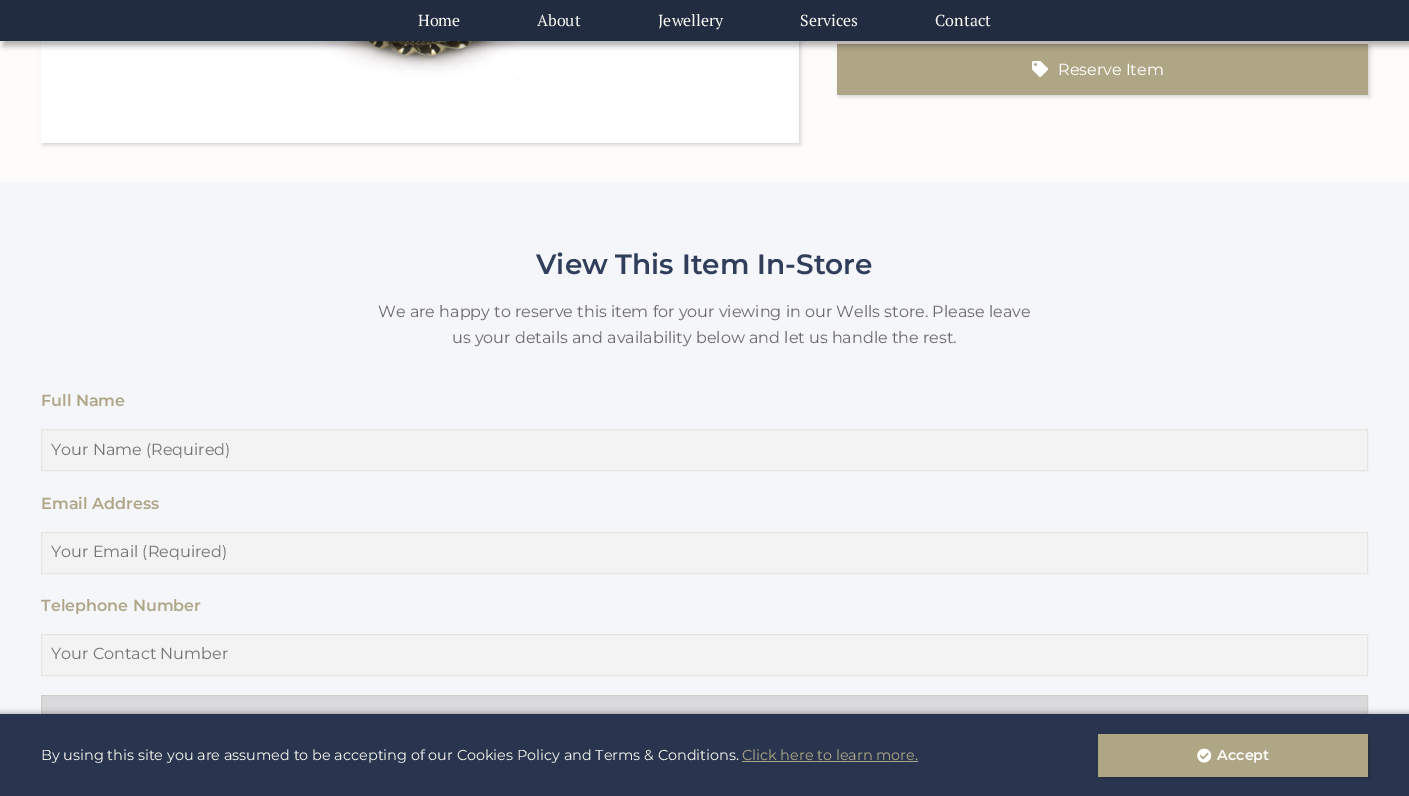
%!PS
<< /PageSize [1409 796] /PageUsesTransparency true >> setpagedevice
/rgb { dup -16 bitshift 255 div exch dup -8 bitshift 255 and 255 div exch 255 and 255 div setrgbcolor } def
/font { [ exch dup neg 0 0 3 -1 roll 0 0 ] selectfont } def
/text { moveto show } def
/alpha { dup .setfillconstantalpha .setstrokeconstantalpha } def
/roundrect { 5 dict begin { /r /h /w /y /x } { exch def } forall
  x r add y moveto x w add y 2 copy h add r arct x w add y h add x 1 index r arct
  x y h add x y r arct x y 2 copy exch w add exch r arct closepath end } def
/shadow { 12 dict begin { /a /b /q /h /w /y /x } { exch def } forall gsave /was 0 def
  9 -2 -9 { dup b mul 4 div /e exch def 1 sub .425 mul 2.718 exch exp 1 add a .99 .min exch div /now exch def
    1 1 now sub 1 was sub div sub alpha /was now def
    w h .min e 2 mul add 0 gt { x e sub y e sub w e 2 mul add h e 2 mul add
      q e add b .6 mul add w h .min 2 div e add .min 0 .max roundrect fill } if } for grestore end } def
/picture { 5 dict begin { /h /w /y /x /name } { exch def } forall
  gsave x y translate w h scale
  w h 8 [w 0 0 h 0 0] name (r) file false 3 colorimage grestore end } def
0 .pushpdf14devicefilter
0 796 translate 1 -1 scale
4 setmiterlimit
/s1 { /PTSerif-Regular 16 font 16#F7F6F1 rgb } def
/s2 { /Montserrat-Regular 16 font 16#FFFFFF rgb } def
/s3 { /Montserrat-SemiBold 28 font 16#303E5C rgb } def
/s4 { /Montserrat-Regular 16 font 16#6C6B69 rgb } def
/s5 { /Montserrat-SemiBold 16 font 16#AFA686 rgb } def
/s6 { /Montserrat-Regular 16 font 16#757575 rgb } def
/s7 { /Montserrat-Regular 14.4 font 16#F7F6F1 rgb } def
/s8 { /Montserrat-Regular 14.4 font 16#AFA686 rgb } def
/s9 { /Montserrat-SemiBold 14.4 font 16#FFFFFF rgb } def
16#FDFCFB rgb
0 0 1409 796 rectfill
16#000000 rgb
43 -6 758 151 0 2 0.15 shadow
(pic1.raw) 41 41 758 102 picture
839 46 531 51 0 2 0.15 shadow
16#AFA686 rgb
837 44 531 51 rectfill
16#000000 rgb
3 3 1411 43 0 3 0.3 shadow
16#222C41 rgb
0 0 1409 41 rectfill
s1
(Home) 418 26 text
(About) 537 26 text
(Jewellery) 658 26 text
(Services) 800 26 text
(Contact) 935 26 text
(pic2.raw) 1032 61 16 16 picture
s2
(Reserve Item) 1058 75 text
16#F5F6FA rgb
0 182 1409 532 rectfill
s3
(View This Item In-Store) 536 274 text
s4
(We are happy to reserve this item for your viewing in our Wells store. Please leave) 378 317 text
(us your details and availability below and let us handle the rest.) 452 343 text
s5
(Full Name) 41 406 text
16#F3F3F3 rgb
41.5 429.5 moveto 1367.5 429.5 lineto 1367.5 470.5 lineto 41.5 470.5 lineto closepath gsave fill grestore
16#E7E5E0 rgb
stroke
s6
(Your Name \(Required\)) 51 455 text
s5
(Email Address) 41 509 text
16#F3F3F3 rgb
41.5 532.5 moveto 1367.5 532.5 lineto 1367.5 573.5 lineto 41.5 573.5 lineto closepath gsave fill grestore
16#E7E5E0 rgb
stroke
s6
(Your Email \(Required\)) 51 557 text
s5
(Telephone Number) 41 611 text
16#F3F3F3 rgb
41.5 634.5 moveto 1367.5 634.5 lineto 1367.5 675.5 lineto 41.5 675.5 lineto closepath gsave fill grestore
16#E7E5E0 rgb
stroke
s6
(Your Contact Number) 51 659 text
16#DADADD rgb
42 696 1325 18 rectfill
16#CFCDC7 rgb
41.5 695.5 1326 41 rectstroke
16#000000 rgb
0 713 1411 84 0 3 0.3 shadow
16#29354E rgb
0 714 1409 82 rectfill
s7
(By using this site you are assumed to be accepting of our Cookies Policy and Terms & Conditions.) 41 760 text
s8
(Click here to learn more.) 742 760 text
742 761 176 1 rectfill
16#000000 rgb
1100 736 270 43 0 2 0.15 shadow
16#AFA686 rgb
1098 734 270 43 rectfill
(pic3.raw) 1197 748 15 15 picture
s9
(Accept) 1217 760 text
.poppdf14devicefilter showpage
